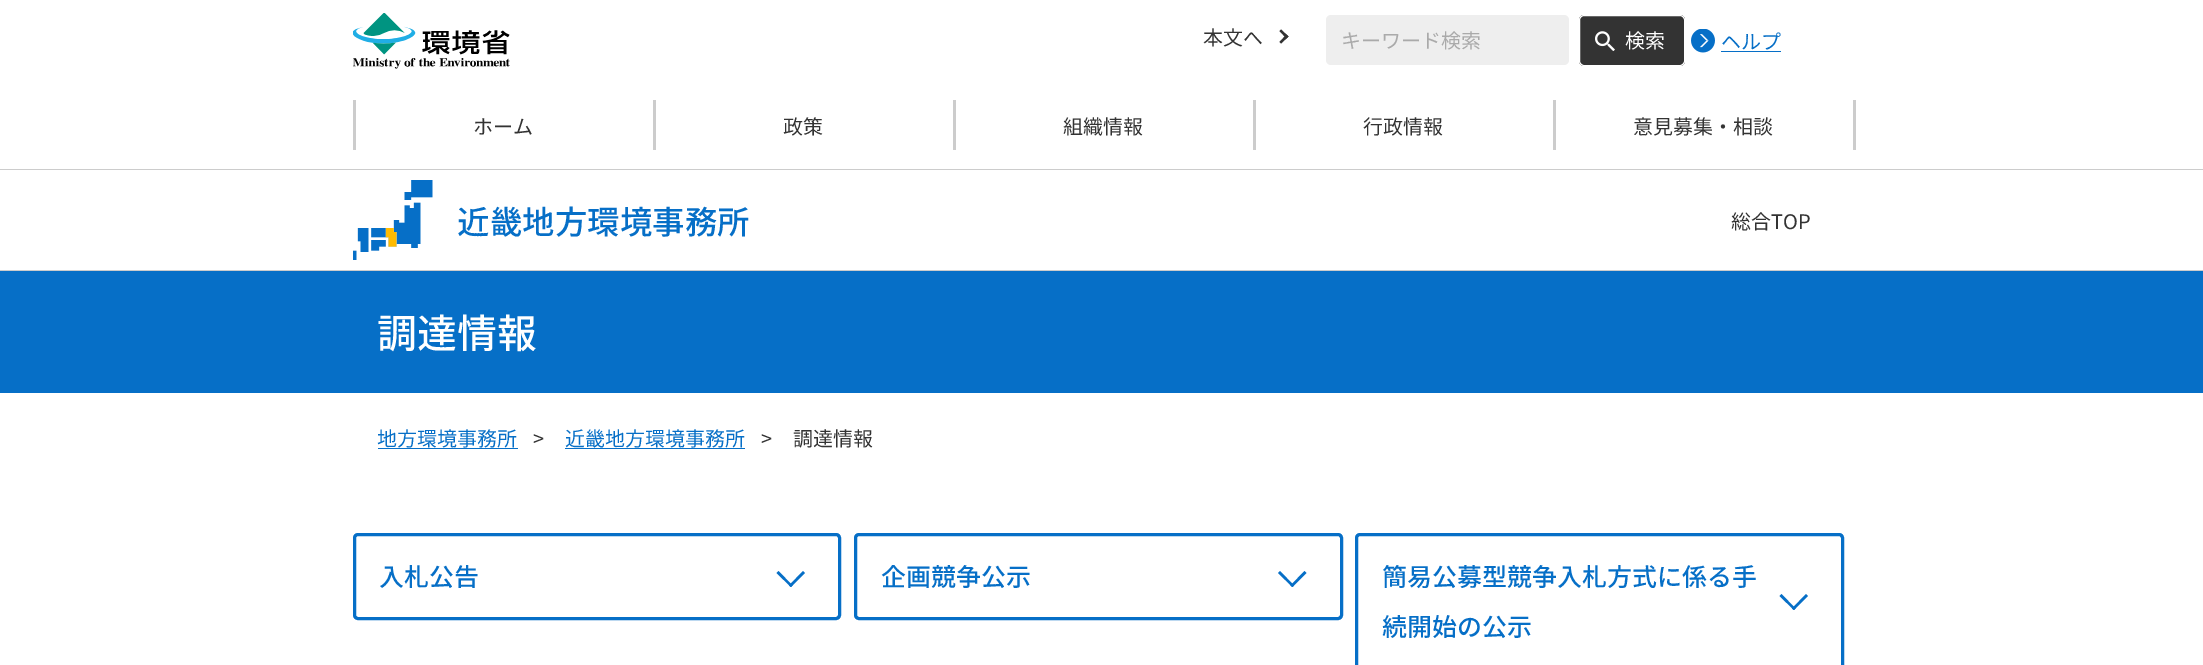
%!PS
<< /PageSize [2203 665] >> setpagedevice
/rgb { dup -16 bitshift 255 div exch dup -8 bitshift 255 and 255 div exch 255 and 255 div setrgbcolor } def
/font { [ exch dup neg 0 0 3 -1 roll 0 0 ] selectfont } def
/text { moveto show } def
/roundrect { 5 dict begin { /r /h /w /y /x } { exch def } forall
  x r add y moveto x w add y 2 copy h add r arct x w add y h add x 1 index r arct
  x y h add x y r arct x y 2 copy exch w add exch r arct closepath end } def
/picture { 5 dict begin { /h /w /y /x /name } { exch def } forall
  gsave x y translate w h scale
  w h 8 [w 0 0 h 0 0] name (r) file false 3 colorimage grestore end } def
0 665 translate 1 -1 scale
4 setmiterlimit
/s1 { /NotoSansCJKJP-Regular 20 font 16#333333 rgb } def
/s2 { /NotoSansCJKJP-Regular 20 font 16#AAAAAA rgb } def
/s3 { /NotoSansCJKJP-Regular 20 font 16#FFFFFF rgb } def
/s4 { /NotoSansCJKJP-Regular 20 font 16#066FC7 rgb } def
/s5 { /NotoSansCJKJP-Medium 32.5 font 16#066FC7 rgb } def
/s6 { /NotoSansCJKJP-Medium 40 font 16#FFFFFF rgb } def
/s7 { /NotoSansCJKJP-Medium 25 font 16#066FC7 rgb } def
16#FFFFFF rgb
0 0 2203 665 rectfill
(pic1.raw) 353 13 157 56 picture
s1
(本文へ) 1203 45 text
1281 29.5 moveto 1288.5 36.5 lineto 1286.5 38.5 lineto 1279.5 31 lineto closepath fill
1286.5 34.5 moveto 1288.5 36.5 lineto 1281 43.5 lineto 1279.5 42 lineto closepath fill
16#EEEEEE rgb
1326 15 243 50 5 roundrect fill
s2
(キーワード検索) 1341 48 text
16#333333 rgb
1579 15 106 51 5 roundrect fill
(pic2.raw) 1595 31 20 20 picture
16#FFFFFF rgb
1579.5 15.5 105 50 4.5 roundrect stroke
(検索) 1625 48 text
(pic3.raw) 1691 29 24 24 picture
s4
(ヘルプ) 1721 49 text
1721 51 60 1 rectfill
16#CCCCCC rgb
353 100 3 50 rectfill
s1
(ホーム) 473 134 text
16#CCCCCC rgb
653 100 3 50 rectfill
s1
(政策) 783 134 text
16#CCCCCC rgb
953 100 3 50 rectfill
s1
(組織情報) 1063 134 text
16#CCCCCC rgb
1253 100 3 50 rectfill
s1
(行政情報) 1363 134 text
16#CCCCCC rgb
1553 100 3 50 rectfill
s1
(意見募集・相談) 1633 134 text
16#CCCCCC rgb
1853 100 3 50 rectfill
0 169 2203 1 rectfill
0 270 2203 1 rectfill
(pic4.raw) 353 180 80 80 picture
s5
(近畿地方環境事務所) 457 234 text
s1
(総合TOP) 1731 229 text
16#066FC7 rgb
0 271 2203 122 rectfill
s6
(調達情報) 377 348 text
s4
(地方環境事務所) 377 446 text
378 448 140 1 rectfill
s1
(>) 533 446 text
s4
(近畿地方環境事務所) 565 446 text
565 448 180 1 rectfill
s1
(>) 761 446 text
(調達情報) 793 446 text
16#066FC7 rgb
3 setlinewidth
354.5 534.5 485 84 3.5 roundrect stroke
s7
(入札公告) 379 586 text
803 571 moveto 805 573 lineto 791 587 lineto 789 585.5 lineto closepath fill
778.5 571 moveto 792.5 585.5 lineto 791 587 lineto 776.5 573 lineto closepath fill
855.5 534.5 486 84 3.5 roundrect stroke
(企画競争公示) 881 586 text
1304.5 571 moveto 1306.5 573 lineto 1292.5 587 lineto 1290.5 585.5 lineto closepath fill
1280 571 moveto 1294 585.5 lineto 1292.5 587 lineto 1278 573 lineto closepath fill
1356.5 534.5 486 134 3.5 roundrect stroke
(簡易公募型競争入札方式に係る手) 1382 586 text
1806 594 moveto 1808 596 lineto 1794 610 lineto 1792 608.5 lineto closepath fill
1781.5 594 moveto 1795.5 608.5 lineto 1794 610 lineto 1779.5 596 lineto closepath fill
(続開始の公示) 1382 636 text
showpage
